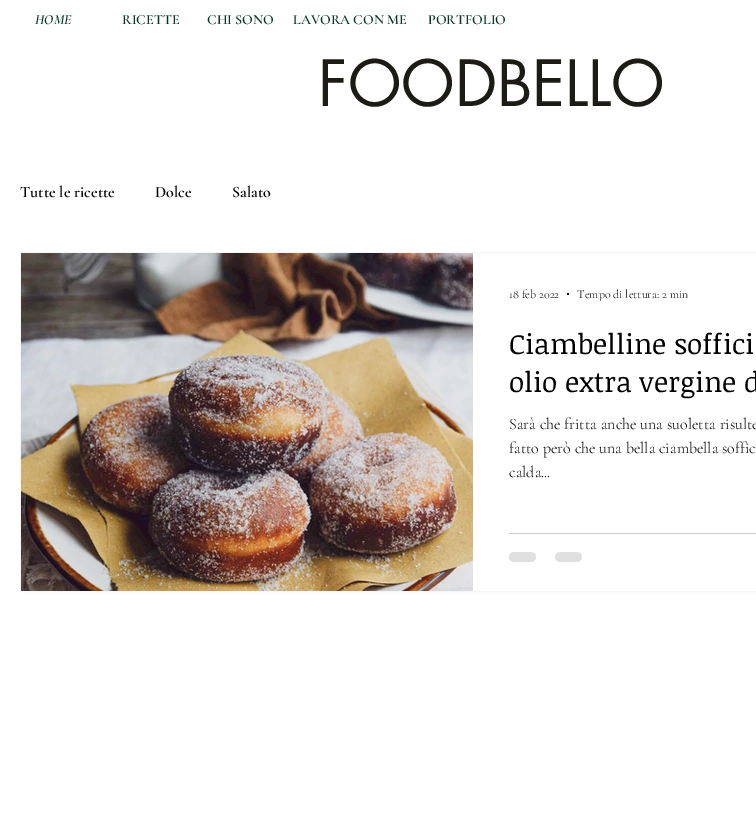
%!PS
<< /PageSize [756 815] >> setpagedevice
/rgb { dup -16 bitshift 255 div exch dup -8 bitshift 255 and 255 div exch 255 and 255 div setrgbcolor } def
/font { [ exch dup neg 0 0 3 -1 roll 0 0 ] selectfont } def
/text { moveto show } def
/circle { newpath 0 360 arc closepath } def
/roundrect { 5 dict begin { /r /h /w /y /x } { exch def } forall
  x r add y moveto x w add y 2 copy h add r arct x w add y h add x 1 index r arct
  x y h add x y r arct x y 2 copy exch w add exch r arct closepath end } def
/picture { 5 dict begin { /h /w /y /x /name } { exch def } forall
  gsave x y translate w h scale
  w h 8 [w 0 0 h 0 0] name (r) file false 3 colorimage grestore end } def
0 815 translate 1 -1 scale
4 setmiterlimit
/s1 { /CormorantGaramond-SemiBoldItalic 14 font 16#063627 rgb } def
/s2 { /CormorantGaramond-SemiBold 14 font 16#063627 rgb } def
/s3 { /futura-Regular 62 font 16#1D1B15 rgb } def
/s4 { /CormorantGaramond-SemiBold 16 font 16#000000 rgb } def
/s5 { /CormorantGaramond-Light 12 font 16#000000 rgb } def
/s6 { /NoticiaText-Regular 28 font 16#000000 rgb } def
/s7 { /CormorantGaramond-Light 16 font 16#000000 rgb } def
16#FFFFFF rgb
0 0 756 815 rectfill
s1
(HOME) 35 24 text
s2
(RICETTE) 122 24 text
(CHI SONO) 207 24 text
(LAVORA CON ME) 293 24 text
(PORTFOLIO) 428 24 text
s3
(FOODBELLO) 318 106 text
s4
(Tutte le ricette) 20 197 text
(Dolce) 155 197 text
(Salato) 232 197 text
16#F5F5F4 rgb
20.5 252.5 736 339 rectstroke
(pic1.raw) 21 253 452 338 picture
s5
(18 feb 2022) 509 298 text
568 294 1 circle fill
gsave
577 287 111 14 rectclip
(Tempo di lettura: 2 min) 577 298 text
grestore
s6
(Ciambelline soffici) 509 354 text
(olio extra vergine d) 509 392 text
s7
(Sarà che fritta anche una suoletta risulte) 509 429 text
(fatto però che una bella ciambella soffic) 509 453 text
(calda...) 509 477 text
16#CCCCCC rgb
509 533 247 1 rectfill
16#E0E0E0 rgb
509 552 27 10 5 roundrect fill
555 552 27 10 5 roundrect fill
showpage
